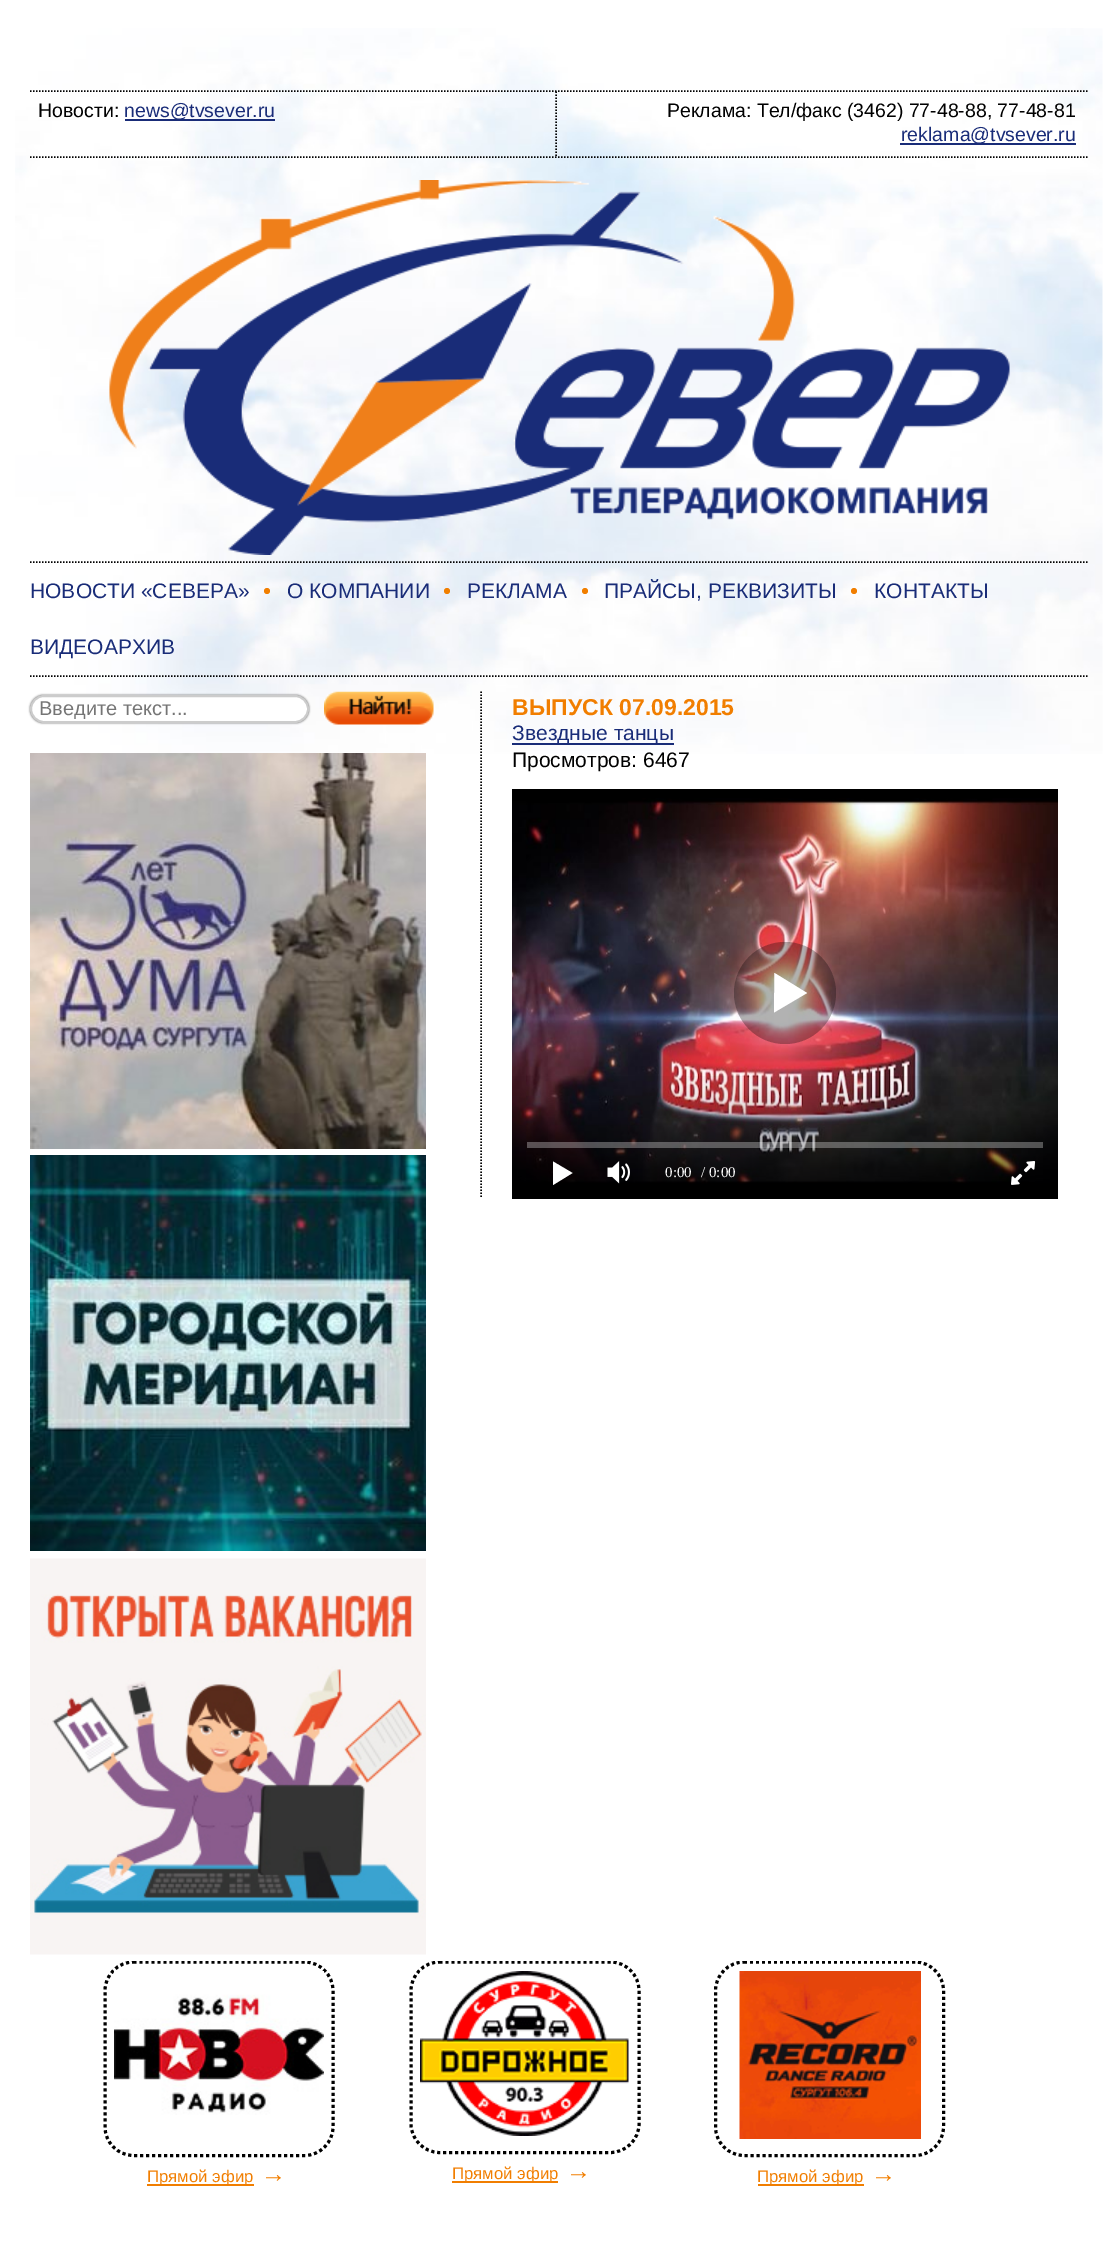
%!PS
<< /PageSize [1117 2243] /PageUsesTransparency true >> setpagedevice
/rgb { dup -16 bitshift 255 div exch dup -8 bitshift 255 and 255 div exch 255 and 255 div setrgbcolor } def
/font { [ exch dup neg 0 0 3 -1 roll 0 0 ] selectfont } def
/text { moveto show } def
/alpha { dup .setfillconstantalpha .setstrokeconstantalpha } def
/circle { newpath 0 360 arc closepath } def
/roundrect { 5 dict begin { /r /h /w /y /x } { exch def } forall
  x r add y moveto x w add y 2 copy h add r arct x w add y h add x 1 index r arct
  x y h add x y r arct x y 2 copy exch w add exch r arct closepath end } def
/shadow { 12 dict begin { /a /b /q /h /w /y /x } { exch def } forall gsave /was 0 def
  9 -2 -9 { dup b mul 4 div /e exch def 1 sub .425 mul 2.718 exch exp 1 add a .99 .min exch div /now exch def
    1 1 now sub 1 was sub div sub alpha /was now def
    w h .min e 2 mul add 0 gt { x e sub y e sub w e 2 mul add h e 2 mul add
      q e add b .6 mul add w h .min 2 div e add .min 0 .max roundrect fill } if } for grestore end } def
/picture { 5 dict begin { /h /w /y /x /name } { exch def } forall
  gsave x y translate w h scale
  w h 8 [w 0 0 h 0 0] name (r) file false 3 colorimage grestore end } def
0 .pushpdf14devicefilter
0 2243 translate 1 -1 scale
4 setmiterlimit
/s1 { /LiberationSans-Regular 19.5 font 16#000000 rgb } def
/s2 { /LiberationSans-Regular 19.5 font 16#192C78 rgb } def
/s3 { /LiberationSans-Regular 21 font 16#192C78 rgb } def
/s4 { /LiberationSans-Regular 20 font 16#757575 rgb } def
/s5 { /LiberationSans-Bold 23 font 16#F17E00 rgb } def
/s6 { /LiberationSans-Regular 21 font 16#000000 rgb } def
/s7 { /LiberationSerif-Regular 15 font 16#FFFFFF rgb } def
/s8 { /LiberationSans-Regular 16.75 font 16#F17E00 rgb } def
/s9 { /LiberationSans-Regular 25 font 16#F17E00 rgb } def
16#FFFFFF rgb
0 0 1117 2243 rectfill
(pic1.raw) 15 28 1088 726 picture
16#000000 rgb
1.5 setlinewidth
[1.5 1.5] 0 setdash
30 91 moveto 1087.5 91 lineto stroke
30 157 moveto 1087.5 157 lineto stroke
s1
(Новости:) 38 117 text
16#192C78 rgb
125 119 150 2 rectfill
(news@tvsever.ru) 124 117 text
16#000000 rgb
556 91.5 moveto 556 156 lineto stroke
(Реклама: Тел/факс \(3462\) 77-48-88, 77-48-81) 667 117 text
16#192C78 rgb
900 143 176 2 rectfill
(reklama@tvsever.ru) 901 141 text
(pic2.raw) 109 180 901 375 picture
16#000000 rgb
30 562 moveto 1087.5 562 lineto stroke
30 676 moveto 1087.5 676 lineto stroke
s3
(НОВОСТИ «СЕВЕРА») 30 598 text
16#F17E00 rgb
267 591 3 circle fill
s3
(О КОМПАНИИ) 287 598 text
16#F17E00 rgb
447 591 3 circle fill
s3
(РЕКЛАМА) 467 598 text
16#F17E00 rgb
585 591 3 circle fill
s3
(ПРАЙСЫ, РЕКВИЗИТЫ) 604 598 text
16#F17E00 rgb
854 591 3 circle fill
s3
(КОНТАКТЫ) 874 598 text
(ВИДЕОАРХИВ) 30 654 text
gsave
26 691 moveto 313 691 lineto 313 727 lineto 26 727 lineto closepath 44 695 moveto 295 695 lineto 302.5 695 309 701.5 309 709 curveto 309 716.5 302.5 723 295 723 curveto 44 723 lineto 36.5 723 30 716.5 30 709 curveto 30 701.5 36.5 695 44 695 curveto closepath eoclip newpath
16#656565 rgb
30 695 279 28 14 1 1 shadow
grestore
16#FFFFFF rgb
31 696 277 26 13 roundrect gsave fill grestore
16#CCCCCC rgb
2 setlinewidth
[] 0 setdash
stroke
s4
(Введите текст...) 39 715 text
(pic3.raw) 324 691 110 34 picture
(pic4.raw) 30 753 396 396 picture
(pic5.raw) 30 1155 396 396 picture
(pic6.raw) 30 1558 396 397 picture
16#000000 rgb
1.5 setlinewidth
[1.5 1.5] 0 setdash
481 691.5 moveto 481 1198.5 lineto stroke
s5
(ВЫПУСК 07.09.2015) 512 715 text
16#192C78 rgb
512 743 162 2 rectfill
s3
(Звездные танцы) 512 740 text
s6
(Просмотров: 6467) 512 767 text
512 789 546 410 rectfill
(pic7.raw) 512 798 546 386 picture
0.3 alpha
785 993 51 circle fill
1 alpha
16#FFFFFF rgb
774.5 973 moveto 774 1012.5 lineto 807 993 lineto 774.5 973 lineto fill
(pic8.raw) 512 1076 546 108 picture
0.3 alpha
527 1142 516 6 rectfill
1 alpha
553 1161.5 moveto 553 1185 lineto 572.5 1173 lineto 553 1161.5 lineto fill
(pic9.raw) 607 1161 23 23 picture
s7
(0:00) 665 1177 text
(/ 0:00) 701 1177 text
(pic10.raw) 1011 1161 25 24 picture
gsave
30 1961 1058 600 rectclip
16#000000 rgb
3 setlinewidth
[3 3] 0 setdash
133.5 1962 moveto 304.5 1962 lineto 320 1962 333 1975 333 1990.5 curveto 333 2127 lineto 333 2142.5 320 2155.5 304.5 2155.5 curveto 133.5 2155.5 lineto 118 2155.5 105 2142.5 105 2127 curveto 105 1990.5 lineto 105 1975 118 1962 133.5 1962 curveto closepath stroke
grestore
(pic11.raw) 114 1971 210 144 picture
16#F17E00 rgb
147 2184 107 2 rectfill
s8
(Прямой эфир) 147 2182 text
s9
(→) 261 2182 text
gsave
30 1961 1058 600 rectclip
16#000000 rgb
3 setlinewidth
[3 3] 0 setdash
439.5 1962 moveto 610.5 1962 lineto 626 1962 639 1975 639 1990.5 curveto 639 2124 lineto 639 2139.5 626 2152.5 610.5 2152.5 curveto 439.5 2152.5 lineto 424 2152.5 411 2139.5 411 2124 curveto 411 1990.5 lineto 411 1975 424 1962 439.5 1962 curveto closepath stroke
grestore
(pic12.raw) 420 1971 209 165 picture
452 2181 106 2 rectfill
s8
(Прямой эфир) 452 2179 text
s9
(→) 566 2179 text
gsave
30 1961 1058 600 rectclip
16#000000 rgb
3 setlinewidth
[3 3] 0 setdash
744 1962 moveto 915 1962 lineto 930.5 1962 943.5 1975 943.5 1990.5 curveto 943.5 2127 lineto 943.5 2142.5 930.5 2155.5 915 2155.5 curveto 744 2155.5 lineto 728.5 2155.5 715.5 2142.5 715.5 2127 curveto 715.5 1990.5 lineto 715.5 1975 728.5 1962 744 1962 curveto closepath stroke
grestore
(pic13.raw) 739 1971 182 168 picture
758 2184 106 2 rectfill
s8
(Прямой эфир) 757 2182 text
s9
(→) 871 2182 text
.poppdf14devicefilter showpage
